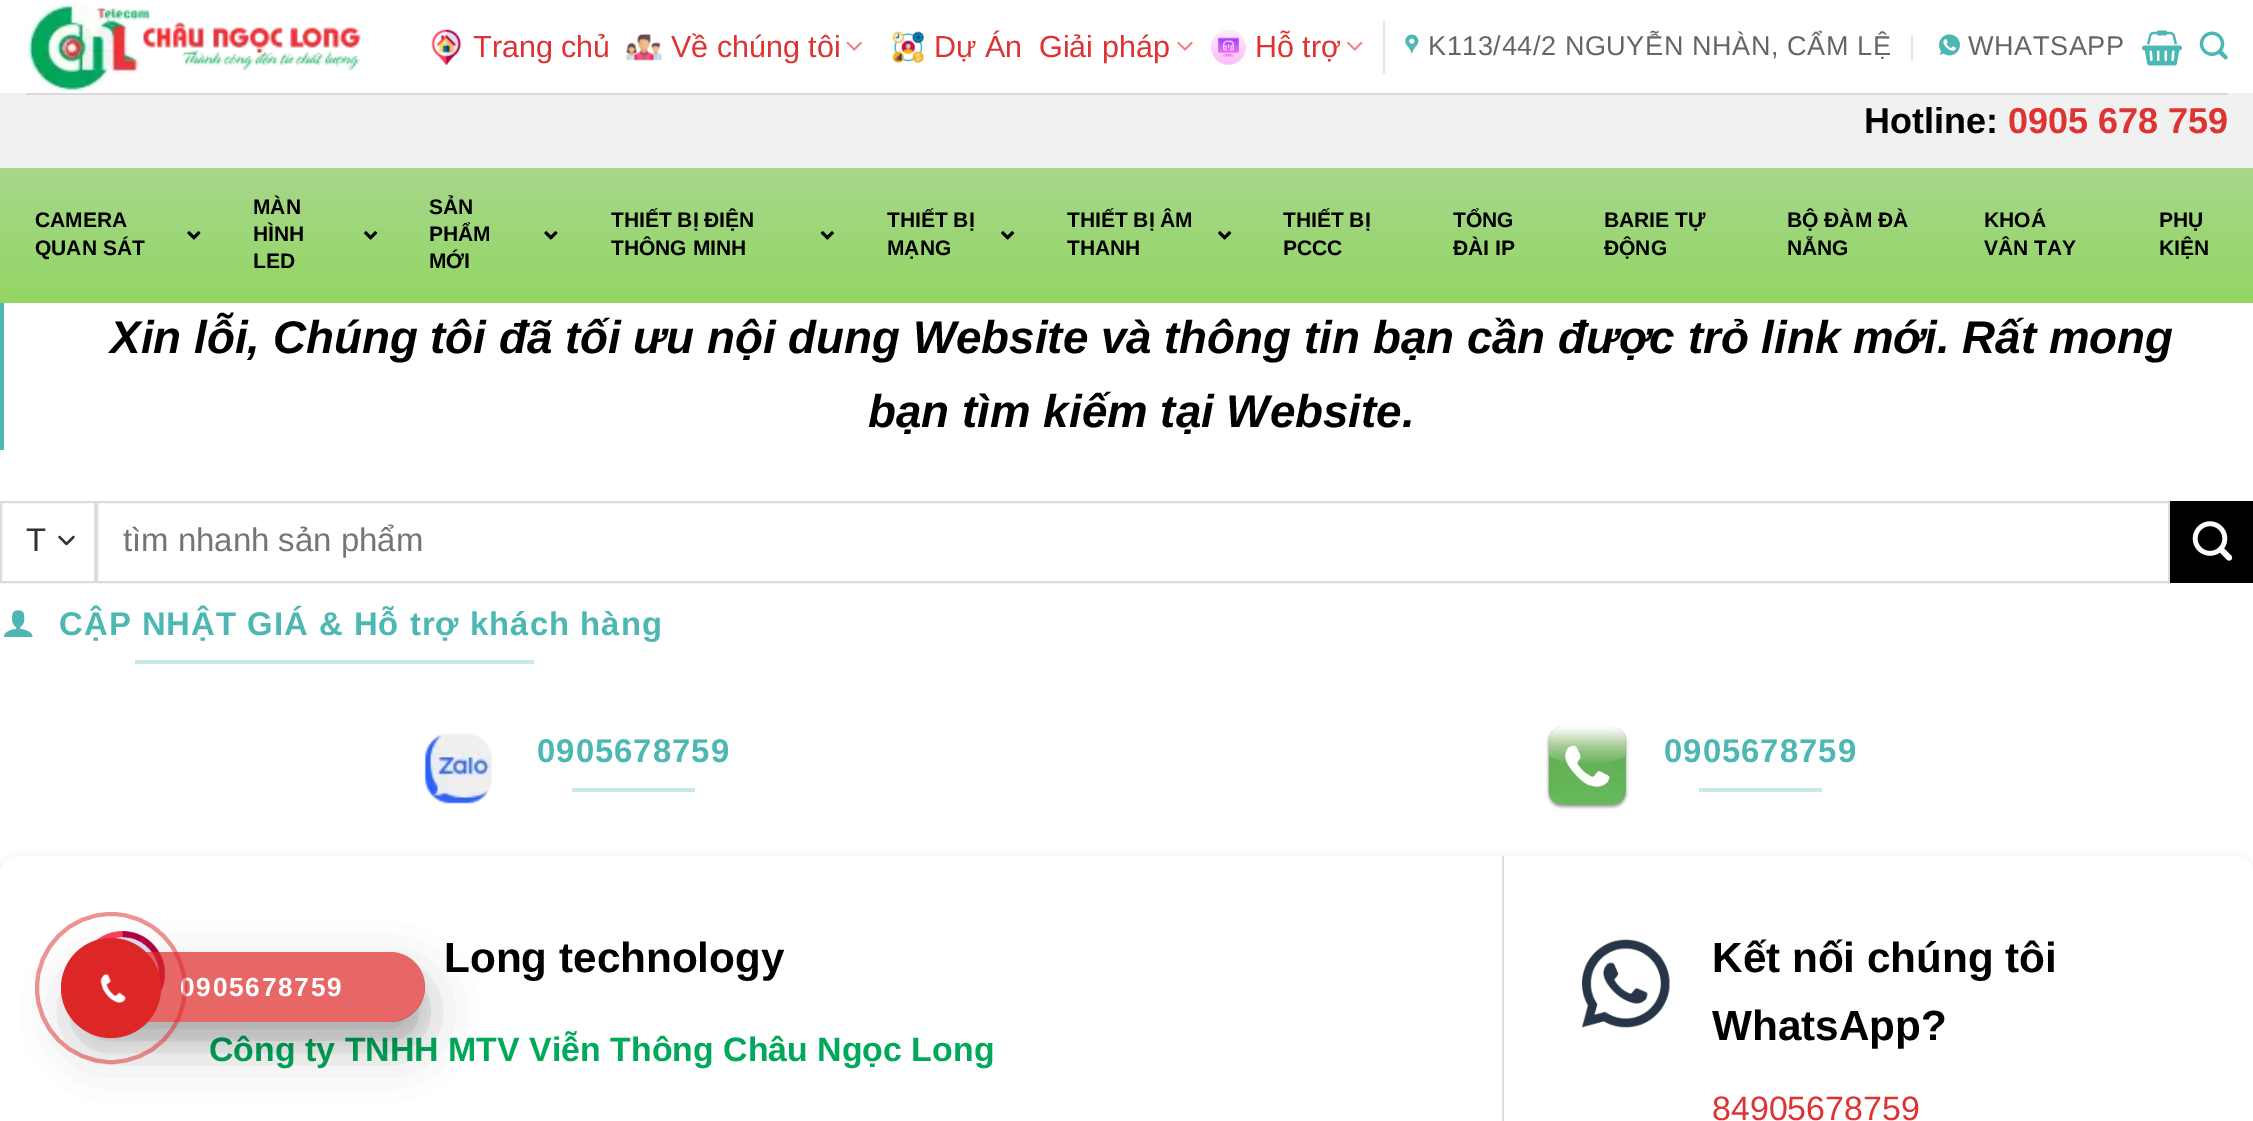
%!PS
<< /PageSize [2253 1121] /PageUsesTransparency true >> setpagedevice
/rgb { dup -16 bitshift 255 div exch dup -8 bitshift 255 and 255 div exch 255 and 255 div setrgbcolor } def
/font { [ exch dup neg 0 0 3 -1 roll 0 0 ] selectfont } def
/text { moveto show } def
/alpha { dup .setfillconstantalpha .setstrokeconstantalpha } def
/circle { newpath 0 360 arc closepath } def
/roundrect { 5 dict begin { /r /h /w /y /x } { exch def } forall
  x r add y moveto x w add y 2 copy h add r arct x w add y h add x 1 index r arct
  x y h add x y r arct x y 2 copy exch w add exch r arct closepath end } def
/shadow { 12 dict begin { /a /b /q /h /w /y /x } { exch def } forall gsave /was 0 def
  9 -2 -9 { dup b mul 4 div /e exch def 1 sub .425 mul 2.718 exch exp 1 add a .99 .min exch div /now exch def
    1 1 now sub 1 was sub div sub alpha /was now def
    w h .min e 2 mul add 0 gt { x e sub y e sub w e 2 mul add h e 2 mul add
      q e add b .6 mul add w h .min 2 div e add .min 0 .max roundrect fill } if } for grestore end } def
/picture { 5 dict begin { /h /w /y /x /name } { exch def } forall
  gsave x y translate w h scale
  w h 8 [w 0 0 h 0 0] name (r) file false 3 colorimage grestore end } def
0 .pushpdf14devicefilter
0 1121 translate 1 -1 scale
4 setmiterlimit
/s1 { /LiberationSans-Regular 30.5 font 16#DD3333 rgb } def
/s2 { /LiberationSans-Bold 36 font 16#000000 rgb } def
/s3 { /LiberationSans-Bold 36 font 16#DD3333 rgb } def
/s4 { /LiberationSans-Bold 21 font 16#000000 rgb } def
/s5 { /LiberationSans-BoldItalic 45.75 font 16#000000 rgb } def
/s6 { /LiberationSans-Regular 32.9 font 16#333333 rgb } def
/s7 { /LiberationSans-Regular 32.9 font 16#757575 rgb } def
/s8 { /LiberationSans-Bold 42.25 font 16#000000 rgb } def
/s9 { /LiberationSans-Bold 33.9 font 16#00A859 rgb } def
/s10 { /LiberationSans-Regular 33.9 font 16#DD3333 rgb } def
16#FFFFFF rgb
0 0 2253 1121 rectfill
(pic1.raw) 26 3 335 89 picture
(pic2.raw) 431 29 30 36 picture
s1
(Trang chủ) 473 57 text
(pic3.raw) 626 33 36 28 picture
(Về chúng tôi) 671 57 text
(pic4.raw) 846 41 16 10 picture
(pic5.raw) 892 31 32 32 picture
(Dự Án) 934 57 text
(Giải pháp) 1039 57 text
(pic6.raw) 1177 41 16 10 picture
(pic7.raw) 1211 29 35 36 picture
(Hỗ trợ) 1255 57 text
(pic8.raw) 1347 41 16 10 picture
16#E6E6E6 rgb
1383 21 2 53 rectfill
(pic9.raw) 1405 34 14 22 picture
/LiberationSans-Regular 27.1 font
16#656565 rgb
1428 55 moveto 0.55 0 (K113/44/2 NGUYỄN NHÀN, CẨM LỆ) ashow
16#E6E6E6 rgb
1911 35 2 26 rectfill
(pic10.raw) 1939 34 21 22 picture
16#656565 rgb
1968 55 moveto 0.55 0 (WHATSAPP) ashow
(pic11.raw) 2142 30 40 36 picture
(pic12.raw) 2199 31 29 29 picture
16#F1F1F1 rgb
0 93 2253 75 rectfill
16#D9D9D9 rgb
26 93 2202 2 rectfill
s2
(Hotline:) 1864 133 text
s3
(0905 678 759) 2008 133 text
gsave 0 168 moveto 2253 168 lineto 2253 303 lineto 0 303 lineto closepath clip newpath
<< /ShadingType 2 /ColorSpace /DeviceRGB /Coords [1127 168 1127 303] /Extend [true true] /Function << /FunctionType 2 /Domain [0 1] /C0 [0.655 0.839 0.545] /C1 [0.576 0.839 0.392] /N 1 >> >> shfill grestore
s4
(CAMERA) 35 227 text
(QUAN SÁT) 35 255 text
(pic13.raw) 187 231 14 9 picture
(MÀN) 253 214 text
(HÌNH) 253 241 text
(LED) 253 268 text
(pic14.raw) 364 231 14 9 picture
(SẢN) 429 214 text
(PHẨM) 429 241 text
(MỚI) 429 268 text
(pic13.raw) 544 231 14 9 picture
(THIẾT BỊ ĐIỆN) 611 227 text
(THÔNG MINH) 611 255 text
(pic15.raw) 820 231 14 9 picture
(THIẾT BỊ) 887 227 text
(MẠNG) 887 255 text
(pic14.raw) 1001 231 14 9 picture
(THIẾT BỊ ÂM) 1067 227 text
(THANH) 1067 255 text
(pic14.raw) 1218 231 14 9 picture
(THIẾT BỊ) 1283 227 text
(PCCC) 1283 255 text
(TỔNG) 1453 227 text
(ĐÀI IP) 1453 255 text
(BARIE TỰ) 1604 227 text
(ĐỘNG) 1604 255 text
(BỘ ĐÀM ĐÀ) 1787 227 text
(NẴNG) 1787 255 text
(KHOÁ) 1984 227 text
(VÂN TAY) 1984 255 text
(PHỤ) 2159 227 text
(KIỆN) 2159 255 text
16#4DB7B3 rgb
0 303 4 147 rectfill
s5
(Xin lỗi, Chúng tôi đã tối ưu nội dung Website và thông tin bạn cần được trỏ link mới. Rất mong) 110 353 text
(bạn tìm kiếm tại Website.) 868 427 text
16#333333 rgb
2.3 setlinewidth
1 setlinecap
1 setlinejoin
59.5 537 moveto 66.5 544 lineto 73.5 537 lineto stroke
16#DDDDDD rgb
2 setlinewidth
0 setlinecap
0 setlinejoin
1 502 94 80 rectstroke
s6
(T) 26 551 text
16#DDDDDD rgb
97 502 2072 80 rectstroke
s7
(tìm nhanh sản phẩm) 123 551 text
16#000000 rgb
2170 501 83 82 rectfill
(pic16.raw) 2192 521 41 40 picture
(pic17.raw) 3 610 30 27 picture
/LiberationSans-Bold 32.9 font
16#4DB7B3 rgb
59 635 moveto 1 0 (CẬP NHẬT GIÁ & Hỗ trợ khách hàng) ashow
16#CAE9E8 rgb
135 660 399 4 rectfill
(pic18.raw) 424 733 68 71 picture
16#4DB7B3 rgb
537 762 moveto 1 0 (0905678759) ashow
16#CAE9E8 rgb
572 788 123 4 rectfill
(pic19.raw) 1546 726 83 84 picture
16#4DB7B3 rgb
1664 762 moveto 1 0 (0905678759) ashow
16#CAE9E8 rgb
1699 788 123 4 rectfill
16#000000 rgb
0 861 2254 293 18 5 0.23 shadow
16#FFFFFF rgb
0 856 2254 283 18 roundrect fill
(pic20.raw) 95 931 71 105 picture
s8
(Long technology) 444 972 text
s9
(Công ty TNHH MTV Viễn Thông Châu Ngọc Long) 209 1061 text
16#DDDDDD rgb
1502 856 2 265 rectfill
(pic21.raw) 1581 939 89 89 picture
s8
(Kết nối chúng tôi) 1712 972 text
(WhatsApp?) 1712 1040 text
s10
(84905678759) 1712 1120 text
gsave
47 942 moveto 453 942 lineto 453 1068 lineto 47 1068 lineto closepath 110 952 moveto 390 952 lineto 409.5 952 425 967.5 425 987 curveto 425 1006.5 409.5 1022 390 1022 curveto 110 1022 lineto 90.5 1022 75 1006.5 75 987 curveto 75 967.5 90.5 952 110 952 curveto closepath eoclip newpath
16#000000 rgb
75 970 350 70 35 9 0.1 shadow
grestore
gsave
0 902 moveto 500 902 lineto 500 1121 lineto 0 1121 lineto closepath 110 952 moveto 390 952 lineto 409.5 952 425 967.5 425 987 curveto 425 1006.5 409.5 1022 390 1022 curveto 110 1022 lineto 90.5 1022 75 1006.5 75 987 curveto 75 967.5 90.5 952 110 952 curveto closepath eoclip newpath
16#000000 rgb
75 977 350 70 35 24.5 0.25 shadow
grestore
0.7 alpha
16#DD2727 rgb
75 952 350 70 35 roundrect fill
/LiberationSans-Bold 26.25 font
1 alpha
16#FFFFFF rgb
180 996 moveto 1.75 0 (0905678759) ashow
0.5 alpha
16#DD2727 rgb
4 setlinewidth
111 988 74 circle stroke
1 alpha
111 988 50 circle fill
(pic22.raw) 100 973 26 30 picture
.poppdf14devicefilter showpage
